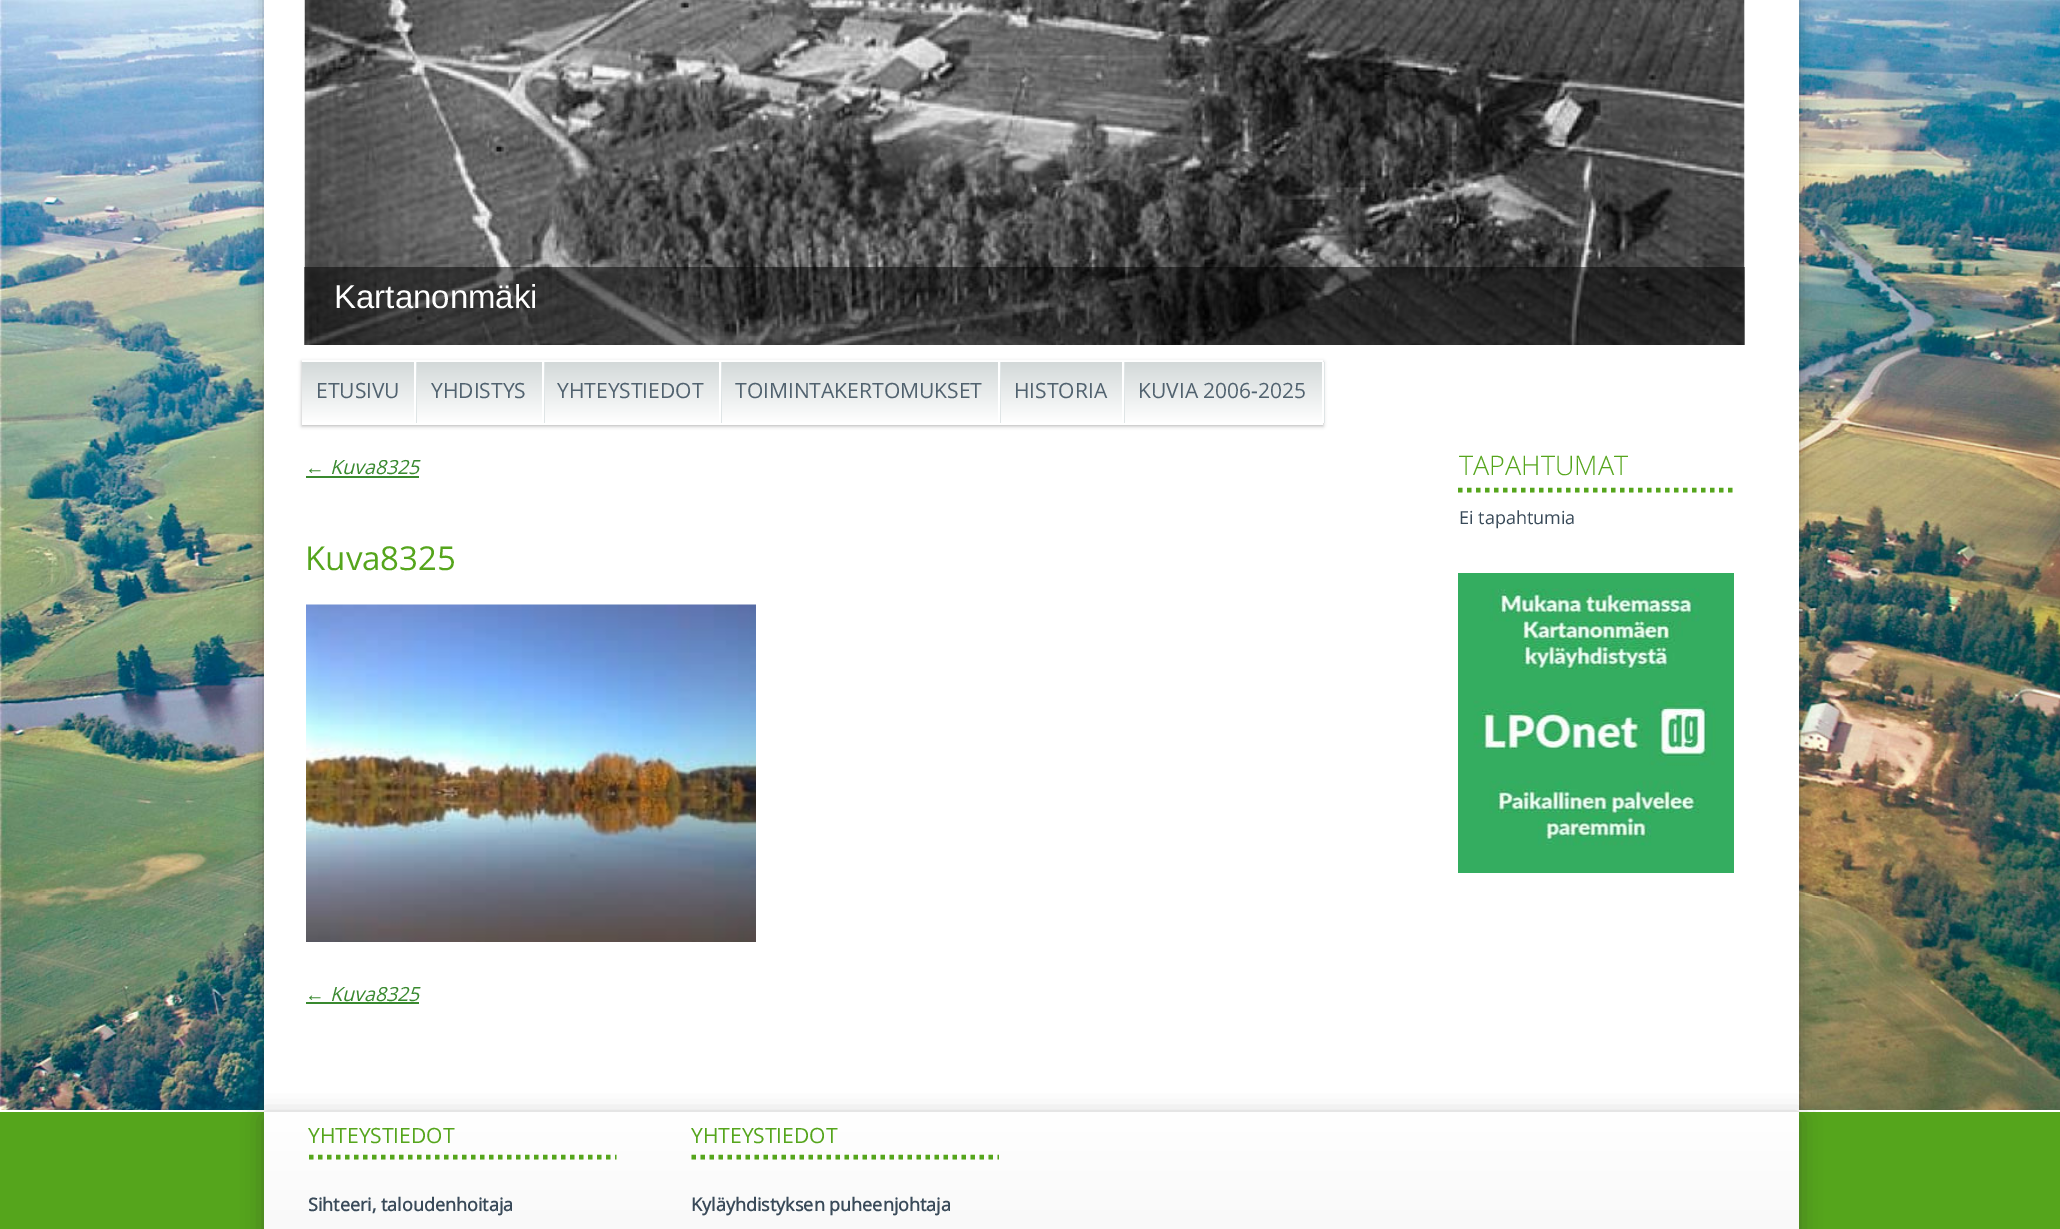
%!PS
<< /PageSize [2060 1229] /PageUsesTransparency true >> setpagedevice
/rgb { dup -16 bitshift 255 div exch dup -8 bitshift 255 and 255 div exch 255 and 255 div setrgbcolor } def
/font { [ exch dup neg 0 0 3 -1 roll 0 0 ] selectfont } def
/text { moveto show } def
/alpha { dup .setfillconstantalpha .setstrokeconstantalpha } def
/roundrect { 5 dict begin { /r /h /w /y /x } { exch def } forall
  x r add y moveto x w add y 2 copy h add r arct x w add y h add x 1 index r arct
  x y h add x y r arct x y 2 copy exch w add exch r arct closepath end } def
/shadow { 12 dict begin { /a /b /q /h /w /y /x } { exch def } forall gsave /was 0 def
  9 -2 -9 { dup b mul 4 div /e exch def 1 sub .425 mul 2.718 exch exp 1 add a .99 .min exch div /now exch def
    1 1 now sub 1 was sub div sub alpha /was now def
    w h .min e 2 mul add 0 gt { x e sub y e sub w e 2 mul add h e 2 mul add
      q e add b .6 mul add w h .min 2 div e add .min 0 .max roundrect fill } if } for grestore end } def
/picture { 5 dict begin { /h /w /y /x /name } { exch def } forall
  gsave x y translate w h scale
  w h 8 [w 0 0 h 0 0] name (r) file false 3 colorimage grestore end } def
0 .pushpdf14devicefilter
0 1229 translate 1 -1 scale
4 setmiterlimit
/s1 { /LiberationSans-Regular 33 font 16#FFFFFF rgb } def
/s2 { /OpenSans-Regular 21 font 16#51626F rgb } def
/s3 { /LiberationSerif-Italic 19.5 font 16#39892F rgb } def
/s4 { /OpenSans-Italic 19.5 font 16#39892F rgb } def
/s5 { /OpenSans-Regular 33 font 16#55A51C rgb } def
/s6 { /OpenSans-Light 27 font 16#55A51C rgb } def
/s7 { /OpenSans-Regular 18 font 16#394A59 rgb } def
/s8 { /OpenSans-Regular 21 font 16#55A51C rgb } def
/s9 { /OpenSans-Bold 18 font 16#394A59 rgb } def
16#FFFFFF rgb
0 0 2060 1229 rectfill
(pic1.raw) 0 0 2060 1110 picture
16#1F1F1F rgb
264 -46 1535 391 23 7.5 0.33 shadow
16#FFFFFF rgb
264 0 1535 345 rectfill
16#1F1F1F rgb
264 363 1535 765 0 7.5 0.33 shadow
(pic2.raw) 304 0 1441 345 picture
0.5 alpha
16#000000 rgb
304 267 1441 78 rectfill
1 alpha
s1
(Kartanonmäki) 334 308 text
264 345 1535 765 rectfill
16#000000 rgb
302 362 1021 64 0 2 0.3 shadow
gsave 302 360 moveto 1323 360 lineto 1323 362 lineto 302 362 lineto closepath clip newpath
<< /ShadingType 2 /ColorSpace /DeviceRGB /Coords [812 300 812 362] /Extend [true true] /Function << /FunctionType 2 /Domain [0 1] /C0 [0.824 0.847 0.847] /C1 [1 1 1] /N 1 >> >> shfill grestore
gsave 302 362 moveto 1322 362 lineto 1322 423 lineto 302 423 lineto closepath clip newpath
<< /ShadingType 2 /ColorSpace /DeviceRGB /Coords [812 361 812 423] /Extend [true true] /Function << /FunctionType 2 /Domain [0 1] /C0 [0.824 0.847 0.847] /C1 [1 1 1] /N 1 >> >> shfill grestore
16#FFFFFF rgb
302 423 1021 2 rectfill
16#DFE5E6 rgb
416 362 1 61 rectfill
16#FFFFFF rgb
414 362 2 61 rectfill
s2
(ETUSIVU) 316 398 text
16#DFE5E6 rgb
544 362 1 61 rectfill
16#FFFFFF rgb
542 362 2 61 rectfill
s2
(YHDISTYS) 431 398 text
16#DFE5E6 rgb
721 362 1 61 rectfill
16#FFFFFF rgb
719 362 2 61 rectfill
s2
(YHTEYSTIEDOT) 557 398 text
16#DFE5E6 rgb
1000 362 1 61 rectfill
16#FFFFFF rgb
998 362 2 61 rectfill
s2
(TOIMINTAKERTOMUKSET) 735 398 text
16#DFE5E6 rgb
1124 362 1 61 rectfill
16#FFFFFF rgb
1122 362 2 61 rectfill
s2
(HISTORIA) 1014 398 text
16#DFE5E6 rgb
1324 362 1 61 rectfill
16#FFFFFF rgb
1322 362 2 61 rectfill
s2
(KUVIA 2006-2025) 1138 398 text
s3
(←) 305 474 text
306 476 113 2 rectfill
s4
(Kuva8325) 330 474 text
s5
(Kuva8325) 305 570 text
(pic3.raw) 306 604 450 338 picture
s3
(←) 305 1001 text
306 1002 113 2 rectfill
s4
(Kuva8325) 330 1001 text
16#55A51C rgb
4.5 setlinewidth
[4.5 4.5] 0 setdash
1458 490 moveto 1735.5 490 lineto stroke
s6
(TAPAHTUMAT) 1459 475 text
s7
(Ei tapahtumia) 1459 524 text
(pic4.raw) 1458 573 276 300 picture
16#55A51C rgb
0 1112 2060 117 rectfill
16#FFFFFF rgb
250 1110 1563 2 rectfill
16#323232 rgb
264 1118 1535 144 0 11 0.43 shadow
gsave 264 1112 moveto 1799 1112 lineto 1799 1229 lineto 264 1229 lineto closepath clip newpath
<< /ShadingType 2 /ColorSpace /DeviceRGB /Coords [1031 1112 1031 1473] /Extend [true true] /Function << /FunctionType 2 /Domain [0 1] /C0 [1 1 1] /C1 [0.922 0.922 0.922] /N 1 >> >> shfill grestore
16#55A51C rgb
309 1157 moveto 616.5 1157 lineto stroke
s8
(YHTEYSTIEDOT) 308 1143 text
s9
(Sihteeri, taloudenhoitaja) 308 1211 text
16#55A51C rgb
691.5 1157 moveto 999 1157 lineto stroke
s8
(YHTEYSTIEDOT) 691 1143 text
s9
(Kyläyhdistyksen puheenjohtaja) 691 1211 text
.poppdf14devicefilter showpage
